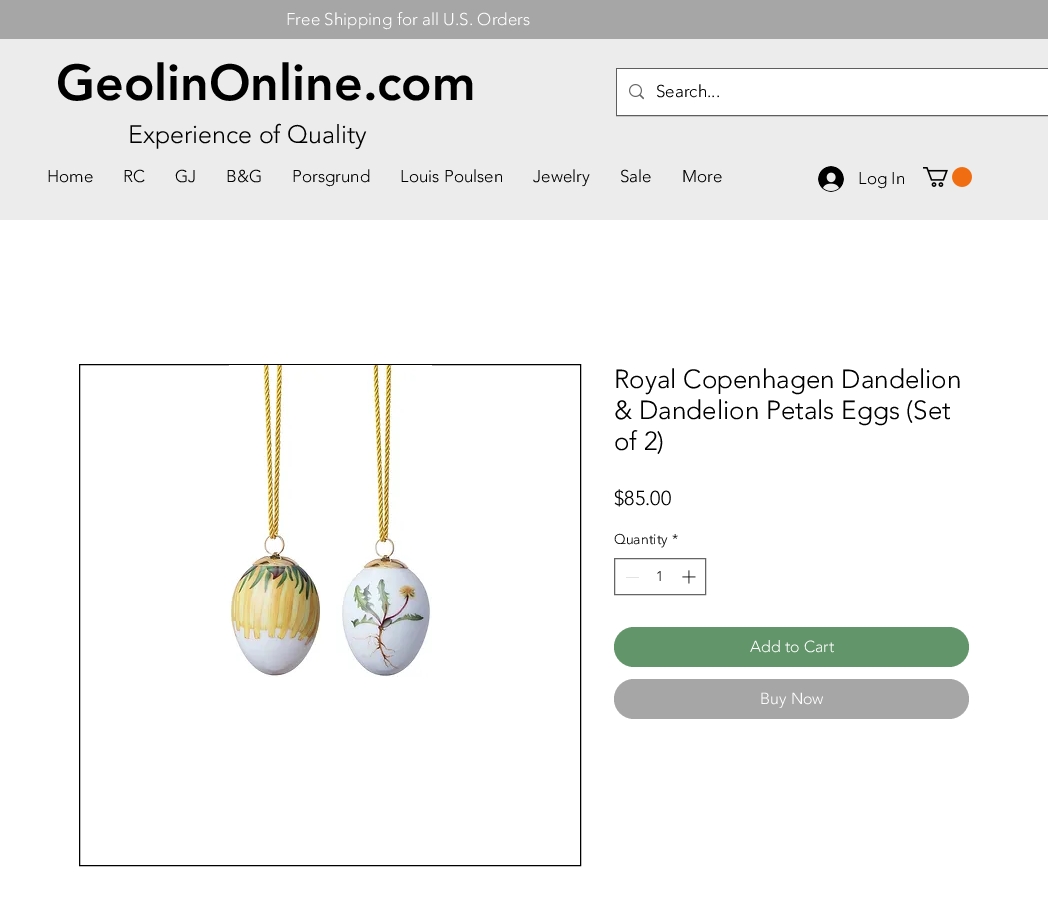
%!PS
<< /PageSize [1048 908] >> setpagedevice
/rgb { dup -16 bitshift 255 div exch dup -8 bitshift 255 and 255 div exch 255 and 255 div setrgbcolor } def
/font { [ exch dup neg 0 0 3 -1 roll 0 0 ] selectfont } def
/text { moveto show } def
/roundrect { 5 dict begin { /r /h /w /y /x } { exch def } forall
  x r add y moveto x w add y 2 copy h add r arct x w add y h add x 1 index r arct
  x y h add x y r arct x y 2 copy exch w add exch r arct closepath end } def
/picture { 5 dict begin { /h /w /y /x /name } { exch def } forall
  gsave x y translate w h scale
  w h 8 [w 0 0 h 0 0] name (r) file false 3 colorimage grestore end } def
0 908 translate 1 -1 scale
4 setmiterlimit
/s1 { /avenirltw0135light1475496-Light 17 font 16#FFFFFF rgb } def
/s2 { /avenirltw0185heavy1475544-Black 50 font 16#000000 rgb } def
/s3 { /avenirltw0135light1475496-Light 17 font 16#000000 rgb } def
/s4 { /avenirltw0135light1475496-Light 25 font 16#000000 rgb } def
/s5 { /avenirltw0135light1475496-Light 26 font 16#000000 rgb } def
/s6 { /avenirltw0135light1475496-Light 20 font 16#000000 rgb } def
/s7 { /avenirltw0135light1475496-Light 14 font 16#000000 rgb } def
/s8 { /avenirltw0135light1475496-Light 16 font 16#FFFFFF rgb } def
16#EDECEC rgb
0 0 1048 908 rectfill
16#A6A6A6 rgb
0 0 1048 39 rectfill
s1
(Free Shipping for all U.S. Orders) 286 25 text
s2
(GeolinOnline.com) 56 100 text
16#5F5E5E rgb
616.5 68.5 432 47 rectstroke
16#FFFFFF rgb
617 69 431 46 rectfill
(pic1.raw) 629 84 15 16 picture
s3
(Search...) 656 97 text
s4
(Experience of Quality) 128 143 text
s3
(Home) 47 182 text
(RC) 123 182 text
(GJ) 175 182 text
(B&G) 226 182 text
(Porsgrund) 292 182 text
(Louis Poulsen) 400 182 text
(Jewelry) 533 182 text
(Sale) 620 182 text
(More) 682 182 text
(pic2.raw) 818 166 26 26 picture
(Log In) 858 184 text
(pic3.raw) 923 167 49 20 picture
16#FFFFFF rgb
0 220 1048 688 rectfill
16#000000 rgb
79.5 364.5 501 501 rectstroke
(pic4.raw) 229 365 203 312 picture
s5
(Royal Copenhagen Dandelion) 614 388 text
(& Dandelion Petals Eggs \(Set) 614 419 text
(of 2\)) 614 450 text
s6
($85.00) 614 505 text
s7
(Quantity) 614 544 text
(*) 672 544 text
16#666666 rgb
614.5 558.5 91 36 rectstroke
16#E3E3E3 rgb
626 577 13 1 rectfill
s7
(1) 656 581 text
(pic5.raw) 682 570 14 14 picture
16#62966A rgb
614 627 355 40 20 roundrect fill
s8
(Add to Cart) 750 652 text
16#A6A6A6 rgb
614 679 355 40 20 roundrect fill
s8
(Buy Now) 760 704 text
showpage
